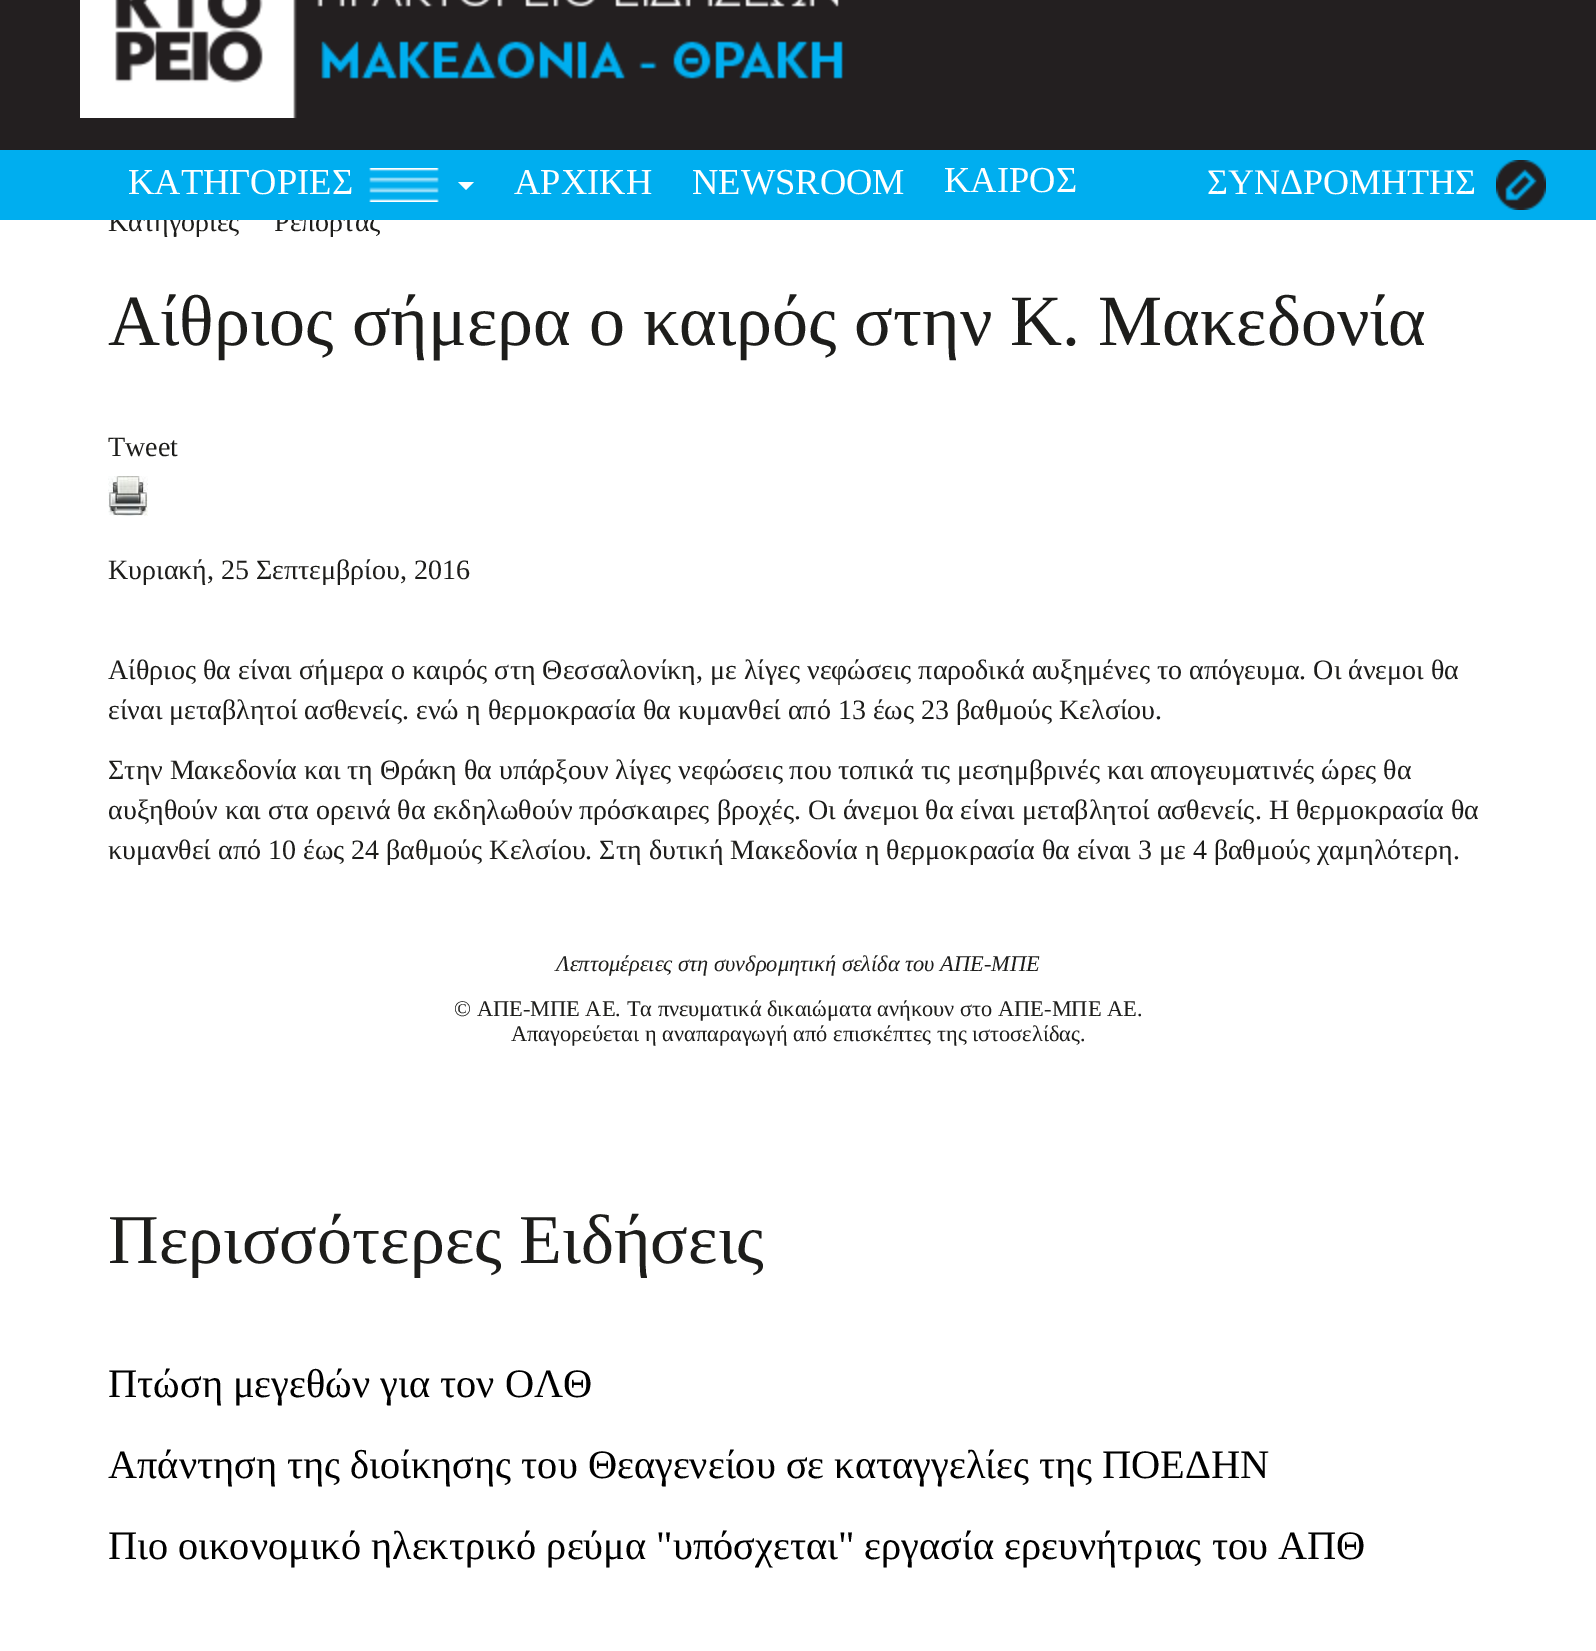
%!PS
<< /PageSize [1596 1651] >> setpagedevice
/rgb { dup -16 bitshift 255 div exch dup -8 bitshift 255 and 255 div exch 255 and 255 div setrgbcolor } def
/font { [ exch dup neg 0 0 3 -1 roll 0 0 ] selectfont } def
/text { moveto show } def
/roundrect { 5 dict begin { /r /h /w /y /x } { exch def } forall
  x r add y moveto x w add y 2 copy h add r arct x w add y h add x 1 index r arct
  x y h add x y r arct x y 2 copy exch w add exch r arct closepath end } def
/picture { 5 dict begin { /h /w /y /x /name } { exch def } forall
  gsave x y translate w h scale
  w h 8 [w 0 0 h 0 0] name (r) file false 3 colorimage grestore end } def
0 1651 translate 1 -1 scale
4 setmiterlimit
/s1 { /LiberationSerif-Regular 28 font 16#1D1D1B rgb } def
/s2 { /LiberationSerif-Regular 36.5 font 16#FFFFFF rgb } def
/s3 { /LiberationSerif-Regular 36 font 16#FFFFFF rgb } def
/s4 { /LiberationSerif-Regular 72 font 16#1D1D1B rgb } def
/s5 { /LiberationSerif-Italic 22.4 font 16#1D1D1B rgb } def
/s6 { /LiberationSerif-Regular 22.4 font 16#1D1D1B rgb } def
/s7 { /LiberationSerif-Regular 70 font 16#1D1D1B rgb } def
/s8 { /LiberationSerif-Regular 40.3 font 16#000000 rgb } def
16#FFFFFF rgb
0 0 1596 1651 rectfill
16#231F20 rgb
0 0 1596 150 rectfill
(pic1.raw) 80 0 763 118 picture
16#00AEEF rgb
0 150 1596 70 rectfill
16#FFFFFF rgb
108 152 1380 90 8 roundrect fill
s1
(Κατηγορίες) 108 231 text
(Ρεπορτάζ) 274 231 text
16#00AEEF rgb
108 152 1380 68 rectfill
s2
(ΚΑΤΗΓΟΡΙΕΣ) 128 194 text
(pic2.raw) 369 168 70 34 picture
458 182 moveto 474 182 lineto 466 190 lineto closepath fill
(ΑΡΧΙΚΗ) 514 194 text
(NEWSRΟΟΜ) 692 194 text
(ΚΑΙΡΟΣ) 944 192 text
s3
(ΣΥΝΔΡΟΜΗΤΗΣ) 1207 194 text
(pic3.raw) 1496 160 50 50 picture
s4
(Αίθριος σήμερα ο καιρός στην Κ. Μακεδονία) 108 345 text
s1
(Tweet) 108 456 text
(pic4.raw) 108 476 40 40 picture
(Κυριακή, 25 Σεπτεμβρίου, 2016) 108 579 text
(Αίθριος θα είναι σήμερα ο καιρός στη Θεσσαλονίκη, με λίγες νεφώσεις παροδικά αυξημένες το απόγευμα. Οι άνεμοι θα) 108 679 text
(είναι μεταβλητοί ασθενείς. ενώ η θερμοκρασία θα κυμανθεί από 13 έως 23 βαθμούς Κελσίου.) 108 719 text
108 779 moveto -0.25 0 32 (Στην Μακεδονία και τη Θράκη θα υπάρξουν λίγες νεφώσεις που τοπικά τις μεσημβρινές και απογευματινές ώρες θα) widthshow
(αυξηθούν και στα ορεινά θα εκδηλωθούν πρόσκαιρες βροχές. Οι άνεμοι θα είναι μεταβλητοί ασθενείς. Η θερμοκρασία θα) 108 819 text
(κυμανθεί από 10 έως 24 βαθμούς Κελσίου. Στη δυτική Μακεδονία η θερμοκρασία θα είναι 3 με 4 βαθμούς χαμηλότερη.) 108 859 text
s5
(Λεπτομέρειες στη συνδρομητική σελίδα του ΑΠΕ-ΜΠΕ) 556 971 text
s6
(© ΑΠΕ-ΜΠΕ ΑΕ. Τα πνευματικά δικαιώματα ανήκουν στο ΑΠΕ-ΜΠΕ ΑΕ.) 454 1016 text
(Απαγορεύεται η αναπαραγωγή από επισκέπτες της ιστοσελίδας.) 511 1041 text
s7
(Περισσότερες Ειδήσεις) 108 1263 text
s8
(Πτώση μεγεθών για τον ΟΛΘ) 108 1397 text
(Απάντηση της διοίκησης του Θεαγενείου σε καταγγελίες της ΠΟΕΔΗΝ) 108 1478 text
(Πιο οικονομικό ηλεκτρικό ρεύμα "υπόσχεται" εργασία ερευνήτριας του ΑΠΘ) 108 1559 text
showpage
